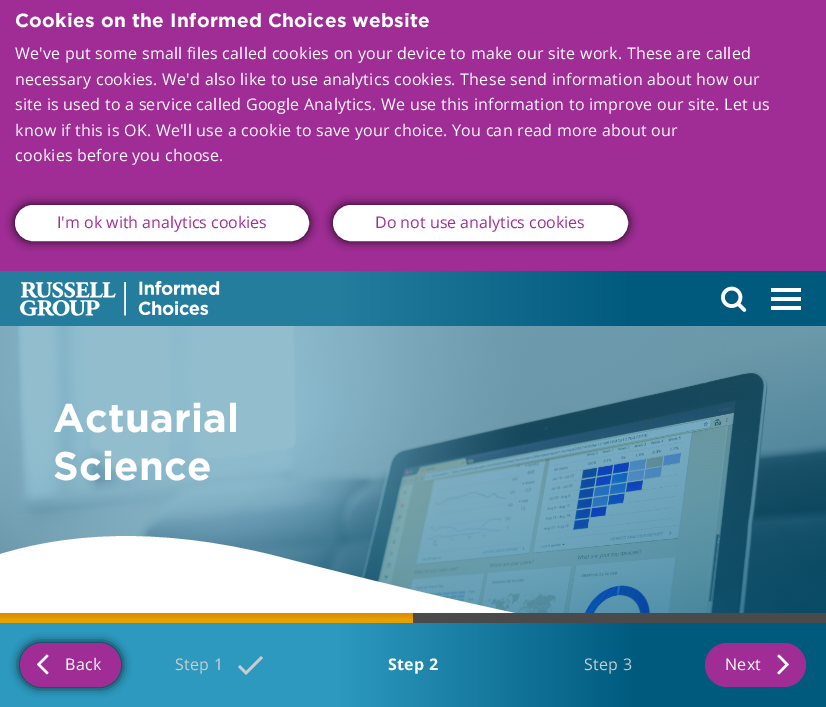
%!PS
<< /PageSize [826 707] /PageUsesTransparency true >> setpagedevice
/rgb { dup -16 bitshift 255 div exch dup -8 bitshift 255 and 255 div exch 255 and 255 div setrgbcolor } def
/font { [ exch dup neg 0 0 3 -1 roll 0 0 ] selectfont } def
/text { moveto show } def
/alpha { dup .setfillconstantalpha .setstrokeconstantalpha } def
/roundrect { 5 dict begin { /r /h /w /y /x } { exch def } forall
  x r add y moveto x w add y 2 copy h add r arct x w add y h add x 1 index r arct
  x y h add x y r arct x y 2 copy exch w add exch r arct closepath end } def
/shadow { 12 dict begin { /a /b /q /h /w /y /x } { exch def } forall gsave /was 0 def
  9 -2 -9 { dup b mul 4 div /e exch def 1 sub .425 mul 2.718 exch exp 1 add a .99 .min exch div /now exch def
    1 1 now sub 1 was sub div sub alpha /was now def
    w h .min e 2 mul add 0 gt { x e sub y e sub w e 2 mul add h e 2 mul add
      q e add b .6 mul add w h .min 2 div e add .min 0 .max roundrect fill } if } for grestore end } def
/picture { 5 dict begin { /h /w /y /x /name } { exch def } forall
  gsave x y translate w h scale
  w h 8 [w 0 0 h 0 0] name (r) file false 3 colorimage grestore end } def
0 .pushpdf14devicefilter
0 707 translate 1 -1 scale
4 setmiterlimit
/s1 { /OpenSans-Regular 16 font 16#9F2D95 rgb } def
16#FFFFFF rgb
0 0 826 707 rectfill
16#9F2D95 rgb
0 0 826 271 rectfill
/Gotham-Bold 19.2 font
16#FFFFFF rgb
15 27 moveto 0.24 0 (Cookies on the Informed Choices website) ashow
/OpenSans-Regular 16 font
15 59 moveto 0.24 0 (We've put some small files called cookies on your device to make our site work. These are called) ashow
15 85 moveto 0.24 0 (necessary cookies. We'd also like to use analytics cookies. These send information about how our) ashow
15 110 moveto 0.24 0 (site is used to a service called Google Analytics. We use this information to improve our site. Let us) ashow
15 136 moveto 0.24 0 (know if this is OK. We'll use a cookie to save your choice. You can read more about our) ashow
15 161 moveto 0.24 0 (cookies) ashow
77 161 moveto 0.24 0 (before you choose.) ashow
16#000000 rgb
15 205 294 36 18 5 0.9 shadow
16#FFFFFF rgb
16 206 292 34 17 roundrect gsave fill grestore
2 setlinewidth
stroke
s1
(I'm ok with analytics cookies) 57 228 text
16#000000 rgb
333 205 295 36 18 5 0.9 shadow
16#FFFFFF rgb
334 206 293 34 17 roundrect gsave fill grestore
stroke
s1
(Do not use analytics cookies) 375 228 text
gsave 0 271 moveto 826 271 lineto 826 326 lineto 0 326 lineto closepath clip newpath
<< /ShadingType 2 /ColorSpace /DeviceRGB /Coords [0 299 826 299] /Extend [true true] /Function << /FunctionType 3 /Domain [0 1] /Functions [<< /FunctionType 2 /Domain [0 1] /C0 [0.141 0.49 0.616] /C1 [0.141 0.49 0.616] /N 1 >> << /FunctionType 2 /Domain [0 1] /C0 [0.141 0.49 0.616] /C1 [0 0.353 0.494] /N 1 >> << /FunctionType 2 /Domain [0 1] /C0 [0 0.353 0.494] /C1 [0 0.353 0.494] /N 1 >>] /Bounds [0.41 0.77] /Encode [0 1 0 1 0 1] >> >> shfill grestore
16#FFFFFF rgb
771 288 30 4 rectfill
771 297 30 4 rectfill
771 306 30 4 rectfill
(pic1.raw) 20 281 200 35 picture
(pic2.raw) 721 286 26 26 picture
(pic3.raw) 0 326 826 287 picture
/Gotham-Bold 40 font
53 432 moveto 0.24 0 (Actuarial) ashow
53 480 moveto 0.24 0 (Science) ashow
757 652 moveto 757 652 642 651 276 556 curveto 157 526 63 533 -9 557 curveto -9 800 lineto 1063 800 lineto 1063 557 lineto 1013 574 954 616 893 635 curveto 820 657 757 652 757 652 curveto closepath fill
16#4A4A4A rgb
413 613 413 10 rectfill
gsave 0 613 moveto 413 613 lineto 413 623 lineto 0 623 lineto closepath clip newpath
<< /ShadingType 2 /ColorSpace /DeviceRGB /Coords [207 623 207 613] /Extend [true true] /Function << /FunctionType 3 /Domain [0 1] /Functions [<< /FunctionType 2 /Domain [0 1] /C0 [0.894 0.631 0] /C1 [0.894 0.631 0] /N 1 >> << /FunctionType 2 /Domain [0 1] /C0 [0.894 0.631 0] /C1 [0.882 0.553 0] /N 1 >> << /FunctionType 2 /Domain [0 1] /C0 [0.882 0.553 0] /C1 [0.882 0.553 0] /N 1 >>] /Bounds [0.41 0.77] /Encode [0 1 0 1 0 1] >> >> shfill grestore
gsave 0 623 moveto 826 623 lineto 826 707 lineto 0 707 lineto closepath clip newpath
<< /ShadingType 2 /ColorSpace /DeviceRGB /Coords [0 665 826 665] /Extend [true true] /Function << /FunctionType 3 /Domain [0 1] /Functions [<< /FunctionType 2 /Domain [0 1] /C0 [0.176 0.6 0.749] /C1 [0.176 0.6 0.749] /N 1 >> << /FunctionType 2 /Domain [0 1] /C0 [0.176 0.6 0.749] /C1 [0 0.353 0.494] /N 1 >> << /FunctionType 2 /Domain [0 1] /C0 [0 0.353 0.494] /C1 [0 0.353 0.494] /N 1 >>] /Bounds [0.41 0.77] /Encode [0 1 0 1 0 1] >> >> shfill grestore
16#000000 rgb
20 643 101 44 22 5 0.9 shadow
16#9F2D95 rgb
20 643 101 44 22 roundrect fill
(pic4.raw) 36 654 13 21 picture
/OpenSans-Regular 16 font
16#FFFFFF rgb
65 670 moveto 0.24 0 (Back) ashow
16#CCCCCC rgb
175 670 moveto 0.24 0 (Step 1) ashow
246 671 moveto 240 665 lineto 238 667 lineto 246 675 lineto 263 658 lineto 261 656 lineto closepath fill
/OpenSans-Bold 16 font
16#FFFFFF rgb
388 670 moveto 0.24 0 (Step 2) ashow
/OpenSans-Regular 16 font
16#CCCCCC rgb
584 670 moveto 0.24 0 (Step 3) ashow
16#9F2D95 rgb
705 643 101 44 22 roundrect fill
16#FFFFFF rgb
725 670 moveto 0.24 0 (Next) ashow
(pic5.raw) 777 654 12 21 picture
.poppdf14devicefilter showpage
